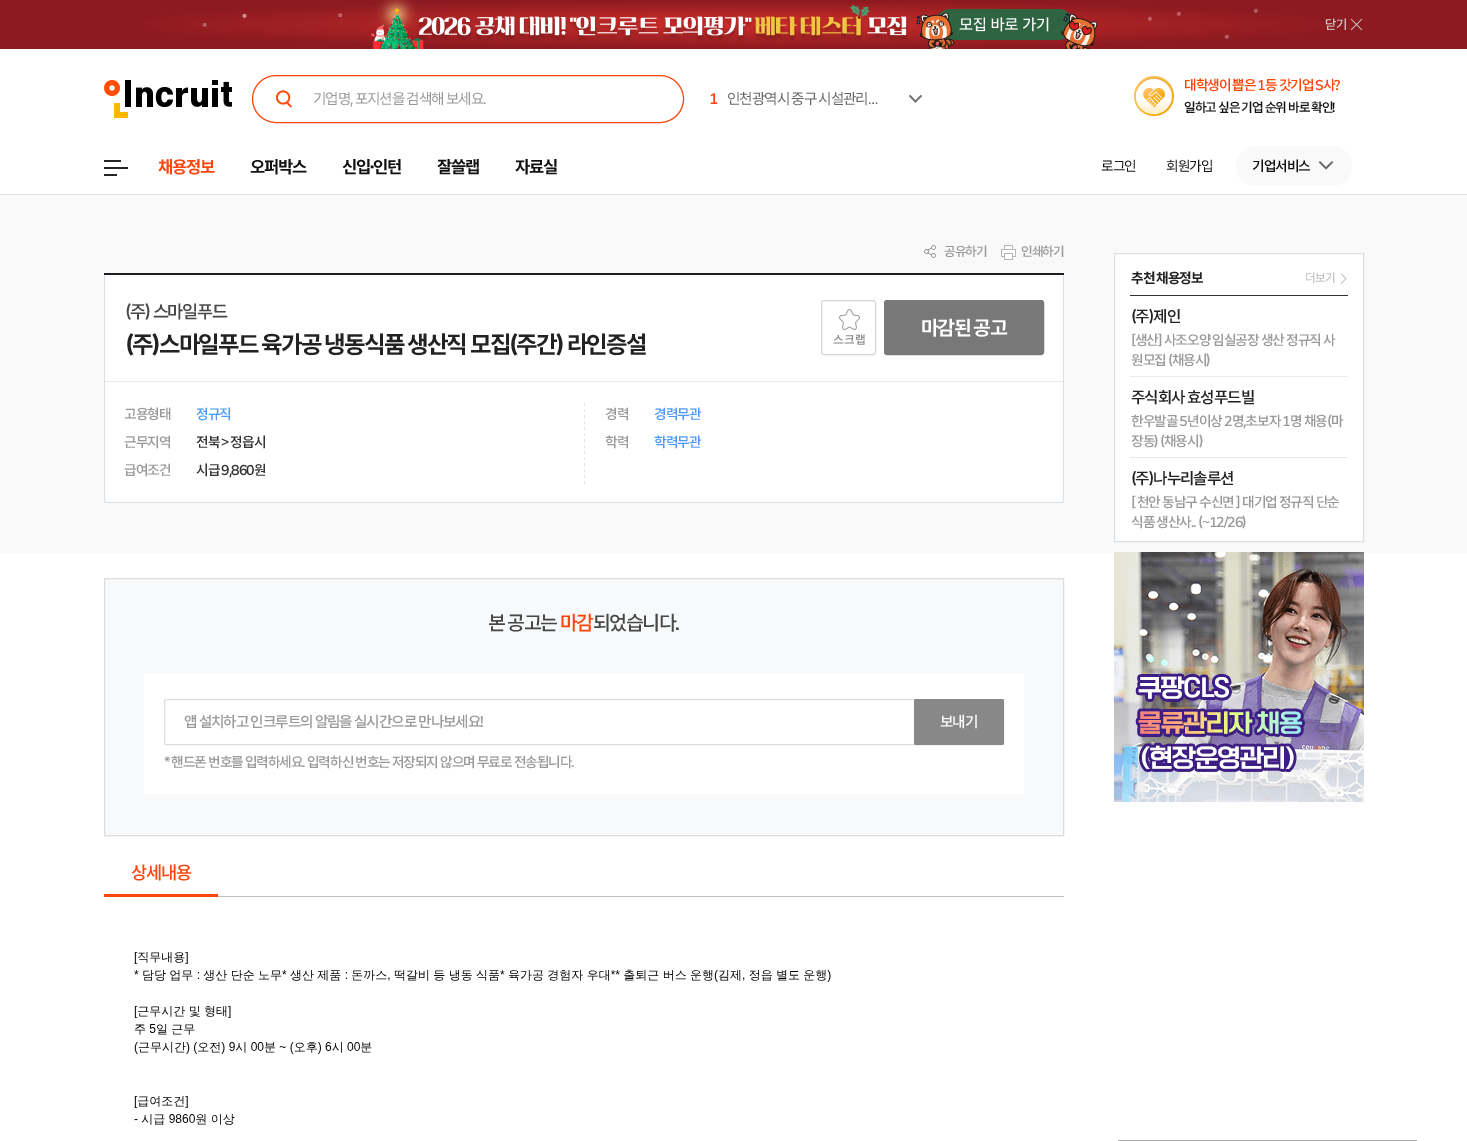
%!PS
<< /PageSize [1467 1141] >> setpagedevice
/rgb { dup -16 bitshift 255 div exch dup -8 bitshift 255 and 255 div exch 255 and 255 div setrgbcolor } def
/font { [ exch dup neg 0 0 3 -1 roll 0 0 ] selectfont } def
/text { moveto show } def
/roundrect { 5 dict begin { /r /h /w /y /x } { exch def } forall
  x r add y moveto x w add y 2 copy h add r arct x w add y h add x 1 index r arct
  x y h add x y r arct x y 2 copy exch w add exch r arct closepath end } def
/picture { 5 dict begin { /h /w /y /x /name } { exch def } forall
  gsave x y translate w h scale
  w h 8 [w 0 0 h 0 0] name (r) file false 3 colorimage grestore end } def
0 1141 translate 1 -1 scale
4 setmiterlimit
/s1 { /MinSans-Medium 12 font 16#888888 rgb } def
16#FFFFFF rgb
0 0 1467 1141 rectfill
16#8C1A20 rgb
0 0 1467 49 rectfill
(pic1.raw) 145 0 1218 49 picture
16#FF460A rgb
252.5 75.5 431 47 23.5 roundrect stroke
(pic2.raw) 276 90 16 18 picture
/MinSans-Regular 15 font
16#999999 rgb
313 104 moveto -1.1 0 (기업명, 포지션을 검색해 보세요.) ashow
(pic3.raw) 104 80 128 38 picture
/MinSans-Medium 15 font
16#FF460A rgb
709 104 moveto -1.1 0 (1) ashow
/MinSans-Regular 15 font
16#666666 rgb
727 104 moveto -1.1 0 (인천광역시 중구 시설관리…) ashow
(pic4.raw) 909 95 13 8 picture
(pic5.raw) 1134 76 40 40 picture
/MinSans-Medium 14 font
16#FF460A rgb
1184 90 moveto -1.05 0 (대학생이 뽑은 1등 갓기업 S사?) ashow
/MinSans-Medium 13 font
16#121212 rgb
1184 112 moveto -1 0 (일하고 싶은 기업 순위 바로 확인!) ashow
16#E1E1E1 rgb
0 194 1467 1 rectfill
16#252525 rgb
104 160 17 2 rectfill
104 167 24 2 rectfill
104 174 13 2 rectfill
/MinSans-Bold 17 font
16#FF460A rgb
158 173 moveto -1.25 0 (채용정보) ashow
16#121212 rgb
250 173 moveto -1.25 0 (오퍼박스) ashow
342 173 moveto -1.25 0 (신입·인턴) ashow
437 173 moveto -1.25 0 (잘쓸랩) ashow
515 173 moveto -1.25 0 (자료실) ashow
/MinSans-Regular 14 font
1101 171 moveto -1.05 0 (로그인) ashow
1166 171 moveto -1.05 0 (회원가입) ashow
16#F9F9F9 rgb
1236 146 116 40 20 roundrect fill
(pic6.raw) 1319 161 14 9 picture
/MinSans-Medium 14 font
16#121212 rgb
1252 171 moveto -1.05 0 (기업서비스) ashow
16#F9F9F9 rgb
0 195 1467 358 rectfill
(pic7.raw) 924 245 13 13 picture
/MinSans-Medium 13 font
16#999999 rgb
944 256 moveto -1 0 (공유하기) ashow
(pic8.raw) 1001 245 15 15 picture
1021 256 moveto -1 0 (인쇄하기) ashow
16#1D1F22 rgb
104 273 960 2 rectfill
16#FFFFFF rgb
104 275 moveto 1064 275 lineto 1064 501 lineto 1064 502 1063 503 1062 503 curveto 107 503 lineto 105.5 503 104 501.5 104 500 curveto closepath fill
16#DAE1E6 rgb
104 275 moveto 1064 275 lineto 1064 501 lineto 1064 502 1063 503 1062 503 curveto 107 503 lineto 105 503 104 502 104 500 curveto closepath 105 275 moveto 1063 275 lineto 1063 501 lineto 1063 502 1063 502 1062 502 curveto 107 502 lineto 106 502 105 501 105 500 curveto closepath eofill
/MinSans-Medium 18 font
16#484848 rgb
125 318 moveto -1.25 0 (\(주\) 스마일푸드) ashow
/MinSans-Bold 24 font
16#222222 rgb
125 353 moveto -1.8 0 (\(주\)스마일푸드 육가공 냉동식품 생산직 모집\(주간\) 라인증설) ashow
16#787878 rgb
884.5 300.5 159 54 2.5 roundrect gsave fill grestore
stroke
/MinSans-Bold 20 font
16#FFFFFF rgb
921 335 moveto -1.5 0 (마감된 공고) ashow
16#D1D6DC rgb
821.5 300.5 54 54 2.5 roundrect stroke
(pic9.raw) 839 309 21 21 picture
s1
(스크랩) 833 344 text
16#EAEAEA rgb
105 381 958 1 rectfill
/MinSans-Medium 14 font
16#999999 rgb
124 419 moveto -1.05 0 (고용형태) ashow
16#4C99FC rgb
196 419 moveto -1.05 0 (정규직) ashow
(pic10.raw) 584 403 1 82 picture
16#999999 rgb
605 419 moveto -1.05 0 (경력) ashow
16#4C99FC rgb
654 419 moveto -1.05 0 (경력무관) ashow
16#999999 rgb
124 447 moveto -1.05 0 (근무지역) ashow
16#333333 rgb
196 447 moveto -1.05 0 (전북 > 정읍시) ashow
16#999999 rgb
605 447 moveto -1.05 0 (학력) ashow
16#4C99FC rgb
654 447 moveto -1.05 0 (학력무관) ashow
16#999999 rgb
124 475 moveto -1.05 0 (급여조건) ashow
16#333333 rgb
196 475 moveto -1.05 0 (시급 9,860원) ashow
16#F7F9FA rgb
104.5 578.5 moveto 1063.5 578.5 lineto 1063.5 835.5 lineto 104.5 835.5 lineto closepath gsave fill grestore
16#DDDDDD rgb
stroke
/MinSans-Medium 20 font
16#484848 rgb
488 630 moveto -1.5 0 (본 공고는) ashow
16#FF460A rgb
560 630 moveto -1.5 0 (마감) ashow
16#484848 rgb
593 630 moveto -1.5 0 (되었습니다.) ashow
16#FFFFFF rgb
144 674 880 120 rectfill
16#DDDDDD rgb
164.5 699.5 839 45 1.5 roundrect stroke
/MinSans-Medium 15 font
16#999999 rgb
184 727 moveto -1.1 0 (앱 설치하고 인크루트의 알림을 실시간으로 만나보세요!) ashow
16#888888 rgb
914 699 90 46 2 roundrect fill
16#FFFFFF rgb
940 727 moveto -1.1 0 (보내기) ashow
/MinSans-Medium 14 font
16#999999 rgb
164 767 moveto -1.05 0 (* 핸드폰 번호를 입력하세요. 입력하신 번호는 저장되지 않으며 무료로 전송됩니다.) ashow
16#C1C1C1 rgb
218 896 846 1 rectfill
/MinSans-Medium 18 font
16#FF460A rgb
131 879 moveto -1.25 0 (상세내용) ashow
104 894 114 3 rectfill
(pic11.raw) 134 952 697 173 picture
16#FFFFFF rgb
1114.5 253.5 moveto 1363.5 253.5 lineto 1363.5 541.5 lineto 1114.5 541.5 lineto closepath gsave fill grestore
16#DAE1E6 rgb
stroke
16#333333 rgb
1130 295 218 1 rectfill
/MinSans-Bold 14 font
16#222222 rgb
1131 283 moveto -1.05 0 (추천 채용정보) ashow
(pic12.raw) 1340 273 7 11 picture
/MinSans-Regular 12 font
16#B5B5B5 rgb
1305 282 moveto -1 0 (더보기) ashow
16#EAEAEA rgb
1130 376 218 1 rectfill
/MinSans-Medium 16 font
16#222222 rgb
1131 322 moveto -1 0 (\(주\)제인) ashow
/MinSans-Medium 14 font
16#999999 rgb
1131 345 moveto -1 0 ([생산] 사조오양 임실공장 생산 정규직 사) ashow
1131 365 moveto -1 0 (원모집 \(채용시\)) ashow
16#EAEAEA rgb
1130 457 218 1 rectfill
/MinSans-Medium 16 font
16#222222 rgb
1131 403 moveto -1 0 (주식회사 효성푸드빌) ashow
/MinSans-Medium 14 font
16#999999 rgb
1131 426 moveto -1 0 (한우발골 5년이상 2명,초보자 1명 채용\(마) ashow
1131 446 moveto -1 0 (장동\) \(채용시\)) ashow
/MinSans-Medium 16 font
16#222222 rgb
1131 484 moveto -1 0 (\(주\)나누리솔루션) ashow
/MinSans-Medium 14 font
16#999999 rgb
1131 507 moveto -1 0 ([ 천안 동남구 수신면 ] 대기업 정규직 단순) ashow
1131 527 moveto -1 0 (식품 생산사.. \(~12/26\)) ashow
(pic13.raw) 1114 552 250 250 picture
16#A5A5A5 rgb
1118 1140 299 1 rectfill
showpage
